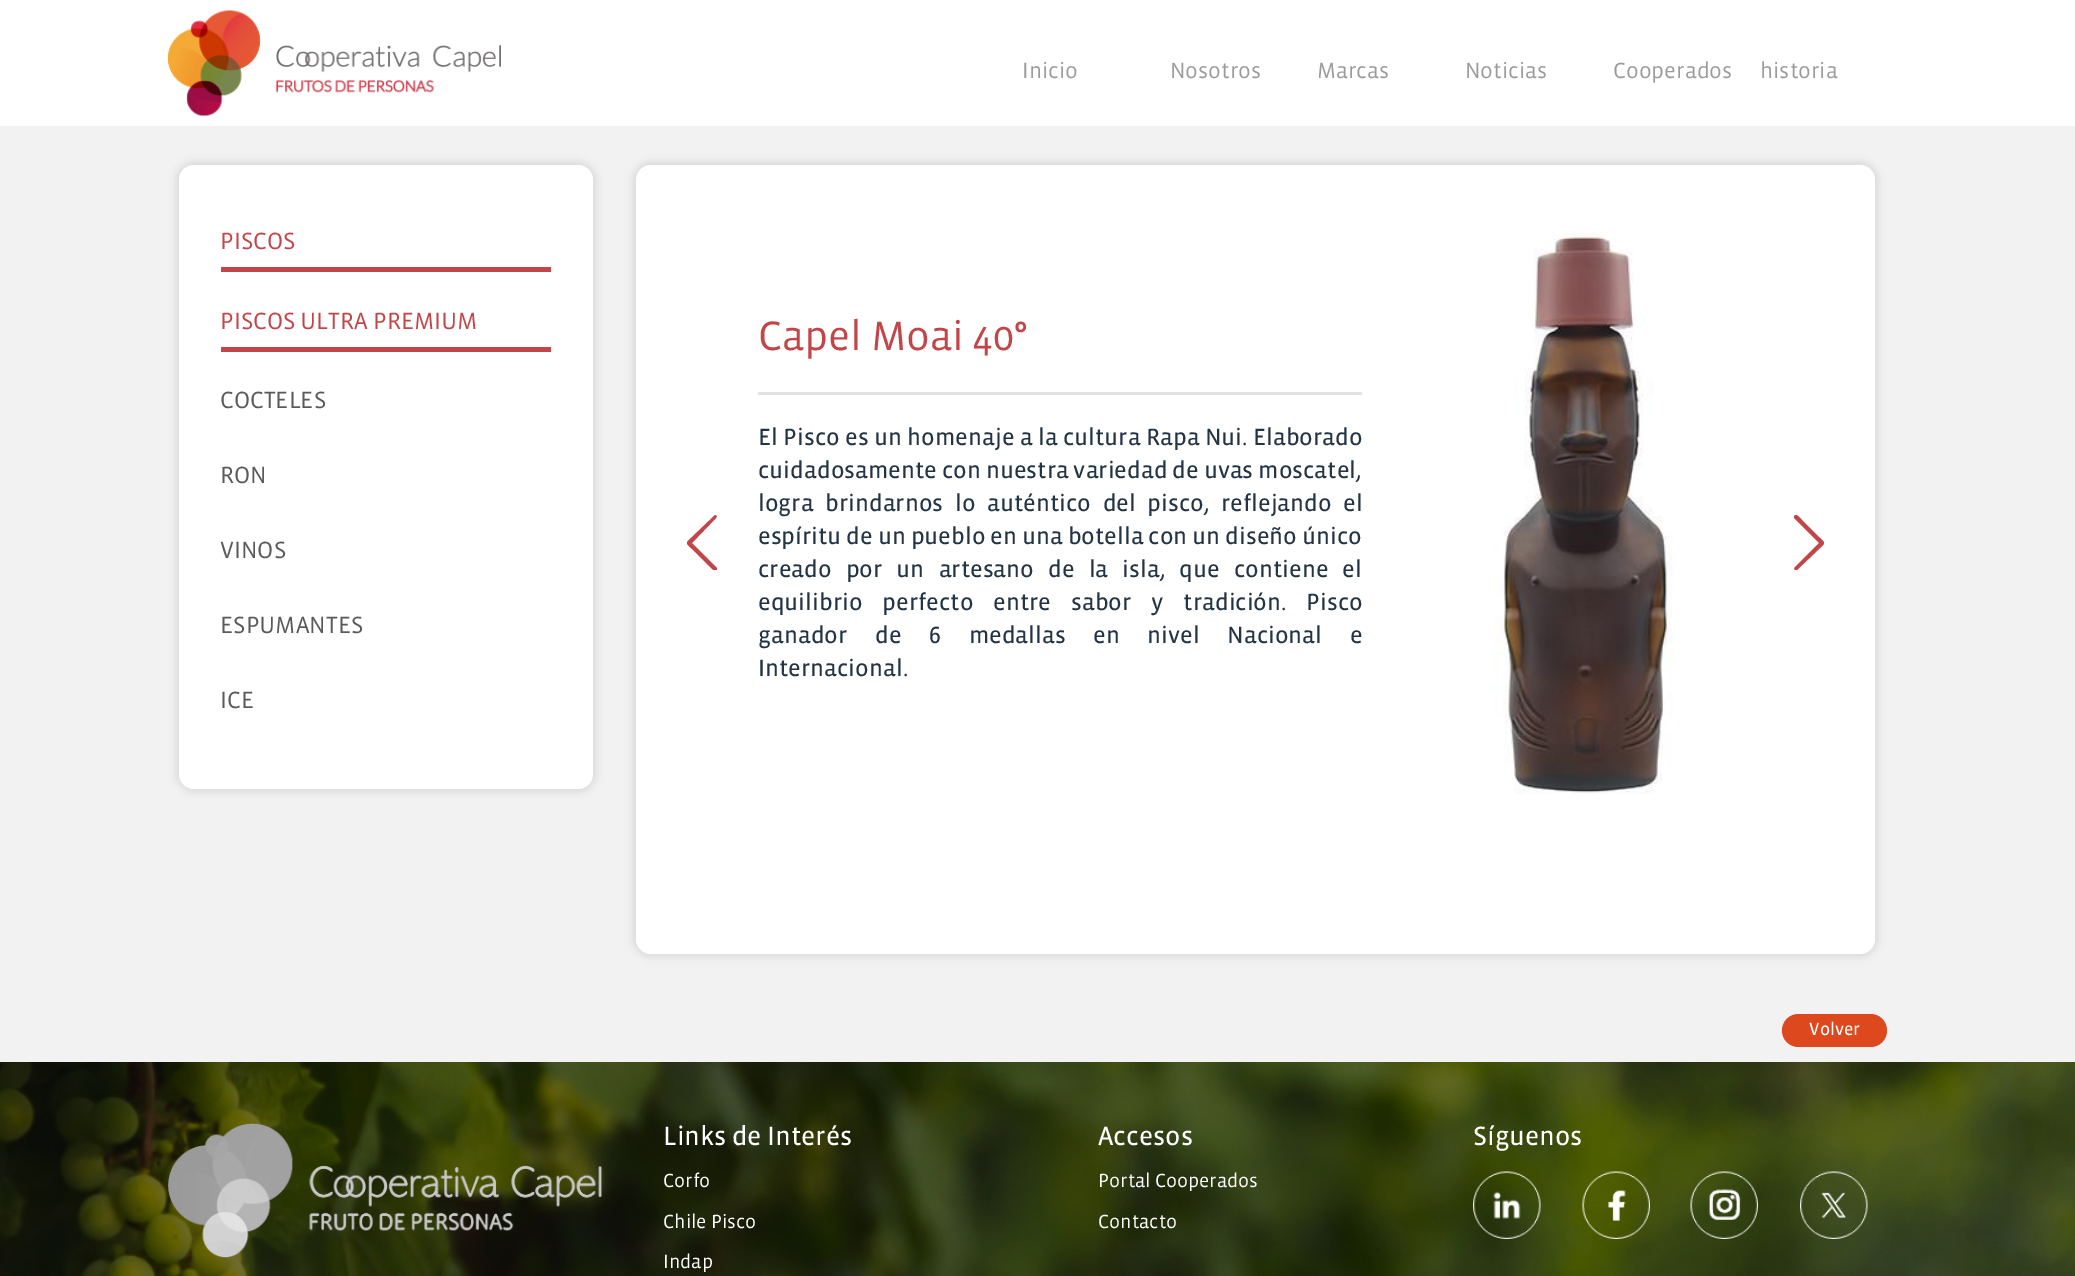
%!PS
<< /PageSize [2075 1276] /PageUsesTransparency true >> setpagedevice
/rgb { dup -16 bitshift 255 div exch dup -8 bitshift 255 and 255 div exch 255 and 255 div setrgbcolor } def
/font { [ exch dup neg 0 0 3 -1 roll 0 0 ] selectfont } def
/text { moveto show } def
/alpha { dup .setfillconstantalpha .setstrokeconstantalpha } def
/roundrect { 5 dict begin { /r /h /w /y /x } { exch def } forall
  x r add y moveto x w add y 2 copy h add r arct x w add y h add x 1 index r arct
  x y h add x y r arct x y 2 copy exch w add exch r arct closepath end } def
/shadow { 12 dict begin { /a /b /q /h /w /y /x } { exch def } forall gsave /was 0 def
  9 -2 -9 { dup b mul 4 div /e exch def 1 sub .425 mul 2.718 exch exp 1 add a .99 .min exch div /now exch def
    1 1 now sub 1 was sub div sub alpha /was now def
    w h .min e 2 mul add 0 gt { x e sub y e sub w e 2 mul add h e 2 mul add
      q e add b .6 mul add w h .min 2 div e add .min 0 .max roundrect fill } if } for grestore end } def
/picture { 5 dict begin { /h /w /y /x /name } { exch def } forall
  gsave x y translate w h scale
  w h 8 [w 0 0 h 0 0] name (r) file false 3 colorimage grestore end } def
0 .pushpdf14devicefilter
0 1276 translate 1 -1 scale
4 setmiterlimit
/s1 { /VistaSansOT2-Regular 22.5 font 16#9B9B9B rgb } def
/s2 { /VistaSansOT2-Regular 24 font 16#C14549 rgb } def
/s3 { /VistaSansOT2-Regular 24 font 16#5A5A5A rgb } def
/s4 { /VistaSansOT2-Regular 42 font 16#C14549 rgb } def
/s5 { /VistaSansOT-Regular 24 font 16#233545 rgb } def
/s6 { /VistaSansOT-Regular 18 font 16#FFFFFF rgb } def
/s7 { /VistaSansOT-Regular 27 font 16#FFFFFF rgb } def
/s8 { /VistaSansOT2-Regular 19.5 font 16#FFFFFF rgb } def
16#F2F2F2 rgb
0 0 2075 1276 rectfill
16#FFFFFF rgb
0 0 2075 126 rectfill
(pic1.raw) 168 10 333 106 picture
s1
(Inicio) 1022 78 text
(Nosotros) 1170 78 text
(Marcas) 1317 78 text
(Noticias) 1465 78 text
(Cooperados) 1613 78 text
(historia) 1760 78 text
16#000000 rgb
176 162 420 630 18 4 0.1 shadow
16#FFFFFF rgb
179 165 414 624 15 roundrect fill
16#C14549 rgb
221 267 330 5 rectfill
s2
(PISCOS) 220 249 text
221 347 330 5 rectfill
(PISCOS ULTRA PREMIUM) 220 329 text
s3
(COCTELES) 220 408 text
(RON) 220 483 text
(VINOS) 220 558 text
(ESPUMANTES) 220 633 text
(ICE) 220 708 text
16#000000 rgb
633 162 1245 795 18 4 0.1 shadow
16#FFFFFF rgb
636 165 1239 789 15 roundrect fill
gsave
687 515 30 55 rectclip
16#C14549 rgb
714 516 moveto 715 514 718 516 716 518 curveto 692 543 lineto 717 568 lineto 717 569 lineto 716 573 712 569 709 566 curveto 692 549 lineto 685 542 685 544 692 537 curveto closepath fill
grestore
s4
(Capel Moai 40°) 758 350 text
16#E3E3E3 rgb
758 392 604 3 rectfill
/VistaSansOT-Regular 24 font
16#233545 rgb
758 445 moveto 0.5 0 32 (El Pisco es un homenaje a la cultura Rapa Nui. Elaborado) widthshow
(cuidadosamente con nuestra variedad de uvas moscatel,) 758 478 text
758 511 moveto 6.75 0 32 (logra brindarnos lo auténtico del pisco, reflejando el) widthshow
(espíritu de un pueblo en una botella con un diseño único) 758 544 text
758 577 moveto 9.25 0 32 (creado por un artesano de la isla, que contiene el) widthshow
758 610 moveto 15 0 32 (equilibrio perfecto entre sabor y tradición. Pisco) widthshow
758 643 moveto 22.75 0 32 (ganador de 6 medallas en nivel Nacional e) widthshow
(Internacional.) 758 676 text
(pic2.raw) 1494 231 179 563 picture
gsave
1794 515 30 55 rectclip
16#C14549 rgb
1797 570 moveto 1796 572 1793 569 1795 567 curveto 1819 543 lineto 1794 518 lineto 1794 517 lineto 1795 512 1799 517 1802 520 curveto 1819 537 lineto 1826 544 1826 542 1819 549 curveto closepath fill
grestore
16#DE481E rgb
1782 1014 105 33 16.5 roundrect fill
s6
(Volver) 1809 1035 text
(pic3.raw) 0 1062 2075 214 picture
(pic4.raw) 168 1123 435 135 picture
s7
(Links de Interés) 663 1145 text
s8
(Corfo) 663 1187 text
(Chile Pisco) 663 1228 text
(Indap) 663 1268 text
s7
(Accesos) 1098 1145 text
s8
(Portal Cooperados) 1098 1187 text
(Contacto) 1098 1228 text
s7
(Síguenos) 1473 1145 text
(pic5.raw) 1473 1171 68 68 picture
(pic6.raw) 1582 1171 68 68 picture
(pic7.raw) 1690 1171 68 68 picture
(pic8.raw) 1800 1171 68 68 picture
.poppdf14devicefilter showpage
